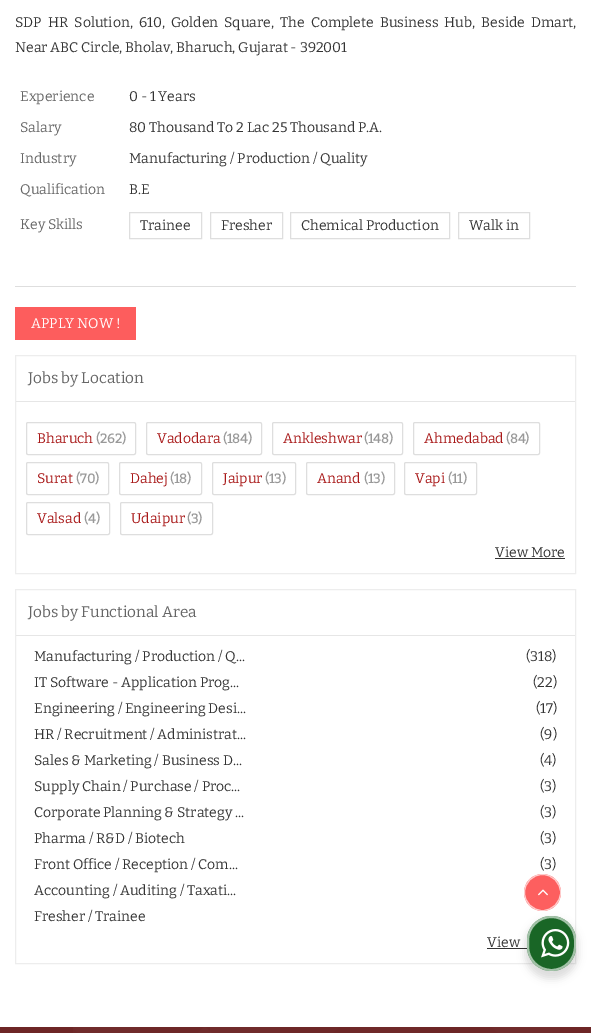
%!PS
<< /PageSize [591 1033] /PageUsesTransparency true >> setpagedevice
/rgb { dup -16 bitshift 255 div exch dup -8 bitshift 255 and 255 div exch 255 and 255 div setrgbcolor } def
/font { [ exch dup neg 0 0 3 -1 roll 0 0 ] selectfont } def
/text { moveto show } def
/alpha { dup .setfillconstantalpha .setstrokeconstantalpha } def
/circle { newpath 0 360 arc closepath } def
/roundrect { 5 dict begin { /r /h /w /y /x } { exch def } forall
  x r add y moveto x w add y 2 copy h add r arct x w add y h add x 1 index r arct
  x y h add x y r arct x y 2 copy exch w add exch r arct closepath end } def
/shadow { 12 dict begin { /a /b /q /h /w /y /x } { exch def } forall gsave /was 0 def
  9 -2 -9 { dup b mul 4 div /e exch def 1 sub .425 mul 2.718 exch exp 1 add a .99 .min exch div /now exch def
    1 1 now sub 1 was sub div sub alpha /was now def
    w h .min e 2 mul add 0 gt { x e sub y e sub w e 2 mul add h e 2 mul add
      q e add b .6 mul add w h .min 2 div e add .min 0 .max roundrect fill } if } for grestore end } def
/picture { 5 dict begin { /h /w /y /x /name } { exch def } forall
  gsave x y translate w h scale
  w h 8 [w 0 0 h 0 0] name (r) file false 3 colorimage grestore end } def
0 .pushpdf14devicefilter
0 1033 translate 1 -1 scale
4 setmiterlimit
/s1 { /Bitter-Thin 14 font 16#333333 rgb } def
/s2 { /Bitter-Thin 14 font 16#666666 rgb } def
/s3 { /Bitter-Thin 14 font 16#FFFFFF rgb } def
/s4 { /Bitter-Thin 15.4 font 16#666666 rgb } def
/s5 { /Bitter-Thin 14 font 16#A81818 rgb } def
/s6 { /Bitter-Bold 13 font 16#999999 rgb } def
16#FFFFFF rgb
0 0 591 1033 rectfill
/Bitter-Thin 14 font
16#333333 rgb
15 27 moveto 3.25 0 32 (SDP HR Solution, 610, Golden Square, The Complete Business Hub, Beside Dmart,) widthshow
(Near ABC Circle, Bholav, Bharuch, Gujarat - 392001) 15 52 text
s2
(Experience) 20 101 text
s1
(0 - 1 Years) 129 101 text
s2
(Salary) 20 132 text
s1
(80 Thousand To 2 Lac 25 Thousand P.A.) 129 132 text
s2
(Industry) 20 163 text
s1
(Manufacturing / Production / Quality) 129 163 text
s2
(Qualification) 20 194 text
s1
(B.E) 129 194 text
s2
(Key Skills) 20 229 text
16#DEDEDE rgb
129.5 212.5 72 26 rectstroke
s1
(Trainee) 140 230 text
16#DEDEDE rgb
210.5 212.5 72 26 rectstroke
s1
(Fresher) 221 230 text
16#DEDEDE rgb
290.5 212.5 159 26 rectstroke
s1
(Chemical Production) 301 230 text
16#DEDEDE rgb
458.5 212.5 71 26 rectstroke
s1
(Walk in) 469 230 text
16#DEDEDE rgb
15 286 561 1 rectfill
16#FD5D5D rgb
15 307 121 33 rectfill
s3
(APPLY NOW !) 31 328 text
16#EDEDED rgb
15.5 355.5 560 218 rectstroke
16#E6E6E6 rgb
16 401 559 1 rectfill
s4
(Jobs by Location) 28 383 text
16#DEDEDE rgb
26.5 422.5 109 32 1.5 roundrect stroke
s5
(Bharuch) 37 443 text
s6
(\(262\)) 96 443 text
16#DEDEDE rgb
146.5 422.5 115 32 1.5 roundrect stroke
s5
(Vadodara) 157 443 text
s6
(\(184\)) 223 443 text
16#DEDEDE rgb
272.5 422.5 130 32 1.5 roundrect stroke
s5
(Ankleshwar) 283 443 text
s6
(\(148\)) 364 443 text
16#DEDEDE rgb
413.5 422.5 126 32 1.5 roundrect stroke
s5
(Ahmedabad) 424 443 text
s6
(\(84\)) 506 443 text
16#DEDEDE rgb
26.5 462.5 82 32 1.5 roundrect stroke
s5
(Surat) 37 483 text
s6
(\(70\)) 76 483 text
16#DEDEDE rgb
119.5 462.5 82 32 1.5 roundrect stroke
s5
(Dahej) 130 483 text
s6
(\(18\)) 170 483 text
16#DEDEDE rgb
212.5 462.5 83 32 1.5 roundrect stroke
s5
(Jaipur) 223 483 text
s6
(\(13\)) 265 483 text
16#DEDEDE rgb
306.5 462.5 88 32 1.5 roundrect stroke
s5
(Anand) 317 483 text
s6
(\(13\)) 364 483 text
16#DEDEDE rgb
404.5 462.5 72 32 1.5 roundrect stroke
s5
(Vapi) 415 483 text
s6
(\(11\)) 448 483 text
16#DEDEDE rgb
26.5 502.5 83 32 1.5 roundrect stroke
s5
(Valsad) 37 523 text
s6
(\(4\)) 84 523 text
16#DEDEDE rgb
120.5 502.5 92 32 1.5 roundrect stroke
s5
(Udaipur) 131 523 text
s6
(\(3\)) 187 523 text
s1
(View More) 495 557 text
495 558 70 1 rectfill
16#EDEDED rgb
15.5 589.5 560 374 rectstroke
16#E6E6E6 rgb
16 635 559 1 rectfill
s4
(Jobs by Functional Area) 28 617 text
s1
(Manufacturing / Production / Q...) 34 661 text
(\(318\)) 526 661 text
(IT Software - Application Prog...) 34 687 text
(\(22\)) 533 687 text
(Engineering / Engineering Desi...) 34 713 text
(\(17\)) 536 713 text
(HR / Recruitment / Administrat...) 34 739 text
(\(9\)) 540 739 text
(Sales & Marketing / Business D...) 34 765 text
(\(4\)) 540 765 text
(Supply Chain / Purchase / Proc...) 34 791 text
(\(3\)) 540 791 text
(Corporate Planning & Strategy ...) 34 817 text
(\(3\)) 540 817 text
(Pharma / R&D / Biotech) 34 843 text
(\(3\)) 540 843 text
(Front Office / Reception / Com...) 34 869 text
(\(3\)) 540 869 text
(Accounting / Auditing / Taxati...) 34 895 text
(Fresher / Trainee) 34 921 text
(View) 487 947 text
487 948 41 1 rectfill
16#6D2626 rgb
0 1027 591 6 rectfill
(pic1.raw) 73 1027 487 6 picture
0.99 alpha
16#FD5D5D rgb
542.5 892.5 18.5 circle fill
0.69 alpha
16#FFFFFF rgb
542.5 892.5 18 circle stroke
1 alpha
(pic2.raw) 538 889 10 7 picture
16#000000 rgb
525 920 53 59 26.5 4 0.14 shadow
16#196626 rgb
527 916 49 55 24.5 roundrect fill
0.6 alpha
16#FFFFFF rgb
2 setlinewidth
528 917 47 53 23.5 roundrect stroke
1 alpha
(pic3.raw) 541 929 29 29 picture
.poppdf14devicefilter showpage
